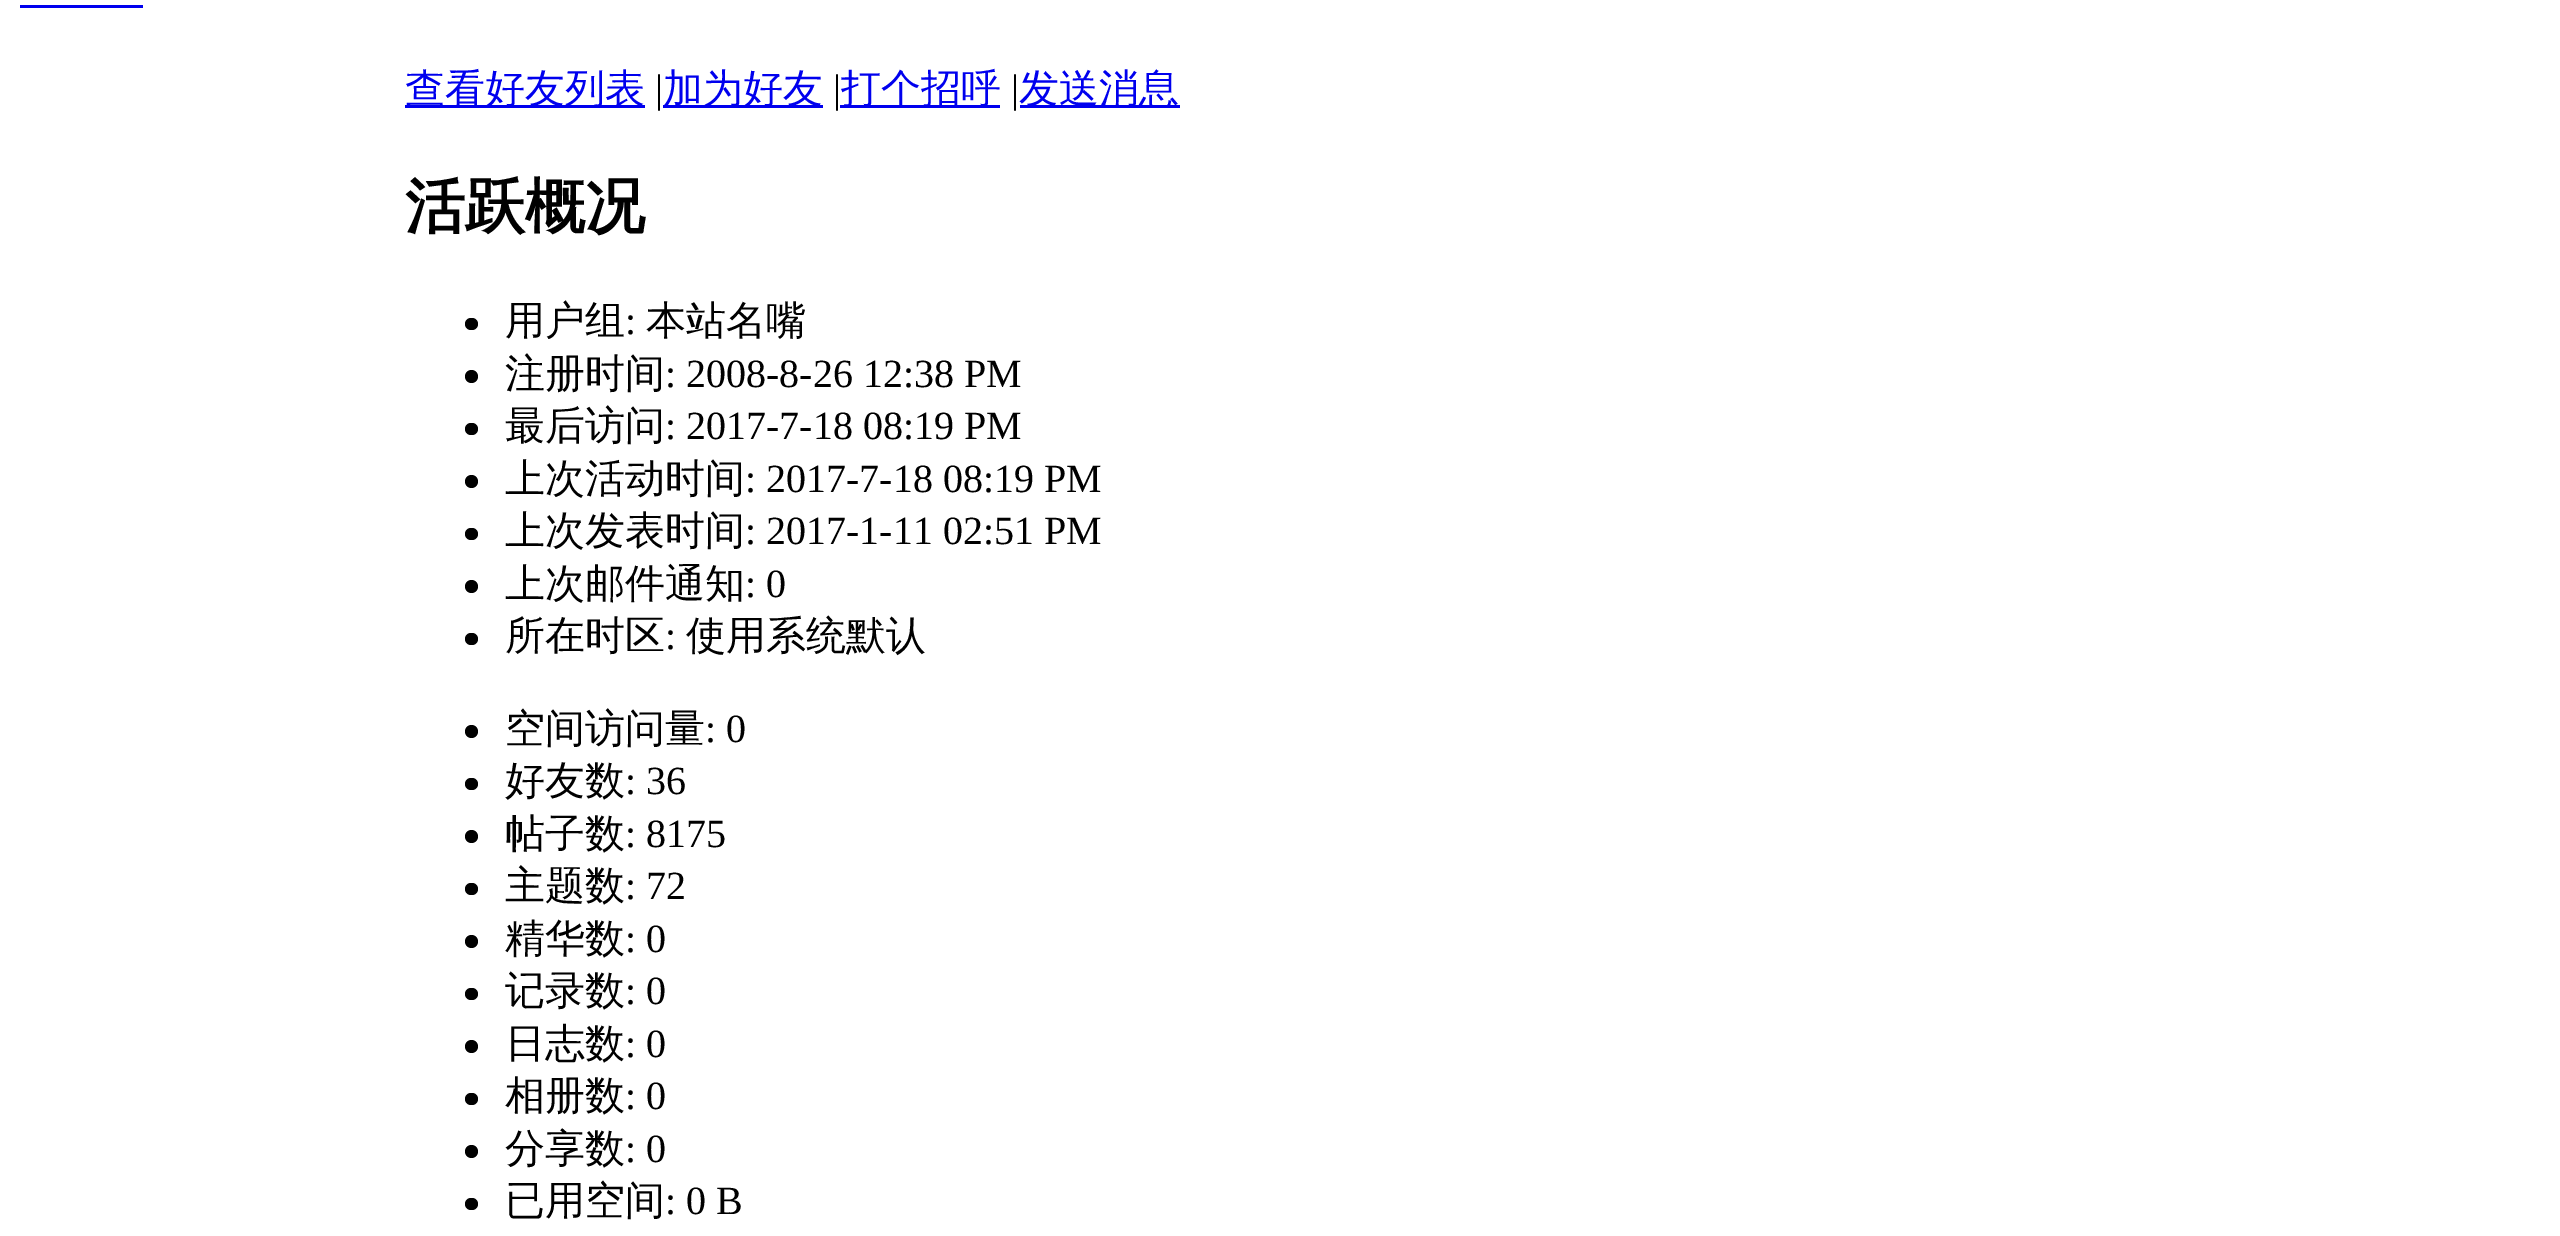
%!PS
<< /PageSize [2560 1236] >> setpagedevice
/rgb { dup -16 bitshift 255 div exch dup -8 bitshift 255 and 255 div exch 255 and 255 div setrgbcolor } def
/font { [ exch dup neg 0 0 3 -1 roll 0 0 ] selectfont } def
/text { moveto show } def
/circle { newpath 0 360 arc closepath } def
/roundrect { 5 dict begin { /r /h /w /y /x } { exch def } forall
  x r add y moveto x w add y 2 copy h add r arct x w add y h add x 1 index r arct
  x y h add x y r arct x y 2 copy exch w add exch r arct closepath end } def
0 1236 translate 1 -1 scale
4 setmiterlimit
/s1 { /WenQuanYiZenHei-Medium 40 font 16#0000EE rgb } def
/s2 { /LiberationSerif-Regular 40 font 16#000000 rgb } def
/s3 { /WenQuanYiZenHei-Bold 60 font 16#000000 rgb } def
/s4 { /WenQuanYiZenHei-Medium 40 font 16#000000 rgb } def
16#FFFFFF rgb
0 0 2560 1236 rectfill
16#0000EE rgb
20 5 123 3 rectfill
405 105 240 3 rectfill
s1
(查看好友列表) 405 102 text
s2
(|) 655 102 text
16#0000EE rgb
663 105 160 3 rectfill
s1
(加为好友) 663 102 text
s2
(|) 833 102 text
16#0000EE rgb
840 105 160 3 rectfill
s1
(打个招呼) 841 102 text
s2
(|) 1011 102 text
16#0000EE rgb
1020 105 160 3 rectfill
s1
(发送消息) 1019 102 text
s3
(活跃概况) 405 227 text
465 318 13 12 6 roundrect fill
s4
(用户组) 505 334 text
s2
(:) 625 334 text
s4
(本站名嘴) 646 334 text
471.5 376.5 6.5 circle fill
(注册时间) 505 387 text
s2
(: 2008-8-26 12:38 PM) 665 387 text
465 423 13 12 6 roundrect fill
s4
(最后访问) 505 439 text
s2
(: 2017-7-18 08:19 PM) 665 439 text
471.5 481.5 6.5 circle fill
s4
(上次活动时间) 505 492 text
s2
(: 2017-7-18 08:19 PM) 745 492 text
465 528 13 12 6 roundrect fill
s4
(上次发表时间) 505 544 text
s2
(: 2017-1-11 02:51 PM) 745 544 text
471.5 586.5 6.5 circle fill
s4
(上次邮件通知) 505 597 text
s2
(: 0) 745 597 text
465 633 13 12 6 roundrect fill
s4
(所在时区) 505 649 text
s2
(:) 665 649 text
s4
(使用系统默认) 686 649 text
471.5 731.5 6.5 circle fill
(空间访问量) 505 742 text
s2
(: 0) 705 742 text
465 778 13 12 6 roundrect fill
s4
(好友数) 505 794 text
s2
(: 36) 625 794 text
471.5 836.5 6.5 circle fill
s4
(帖子数) 505 847 text
s2
(: 8175) 625 847 text
465 883 13 12 6 roundrect fill
s4
(主题数) 505 899 text
s2
(: 72) 625 899 text
471.5 941.5 6.5 circle fill
s4
(精华数) 505 952 text
s2
(: 0) 625 952 text
465 988 13 12 6 roundrect fill
s4
(记录数) 505 1004 text
s2
(: 0) 625 1004 text
471.5 1046.5 6.5 circle fill
s4
(日志数) 505 1057 text
s2
(: 0) 625 1057 text
465 1093 13 12 6 roundrect fill
s4
(相册数) 505 1109 text
s2
(: 0) 625 1109 text
471.5 1151.5 6.5 circle fill
s4
(分享数) 505 1162 text
s2
(: 0) 625 1162 text
465 1198 13 12 6 roundrect fill
s4
(已用空间) 505 1214 text
s2
(: 0 B) 665 1214 text
showpage
